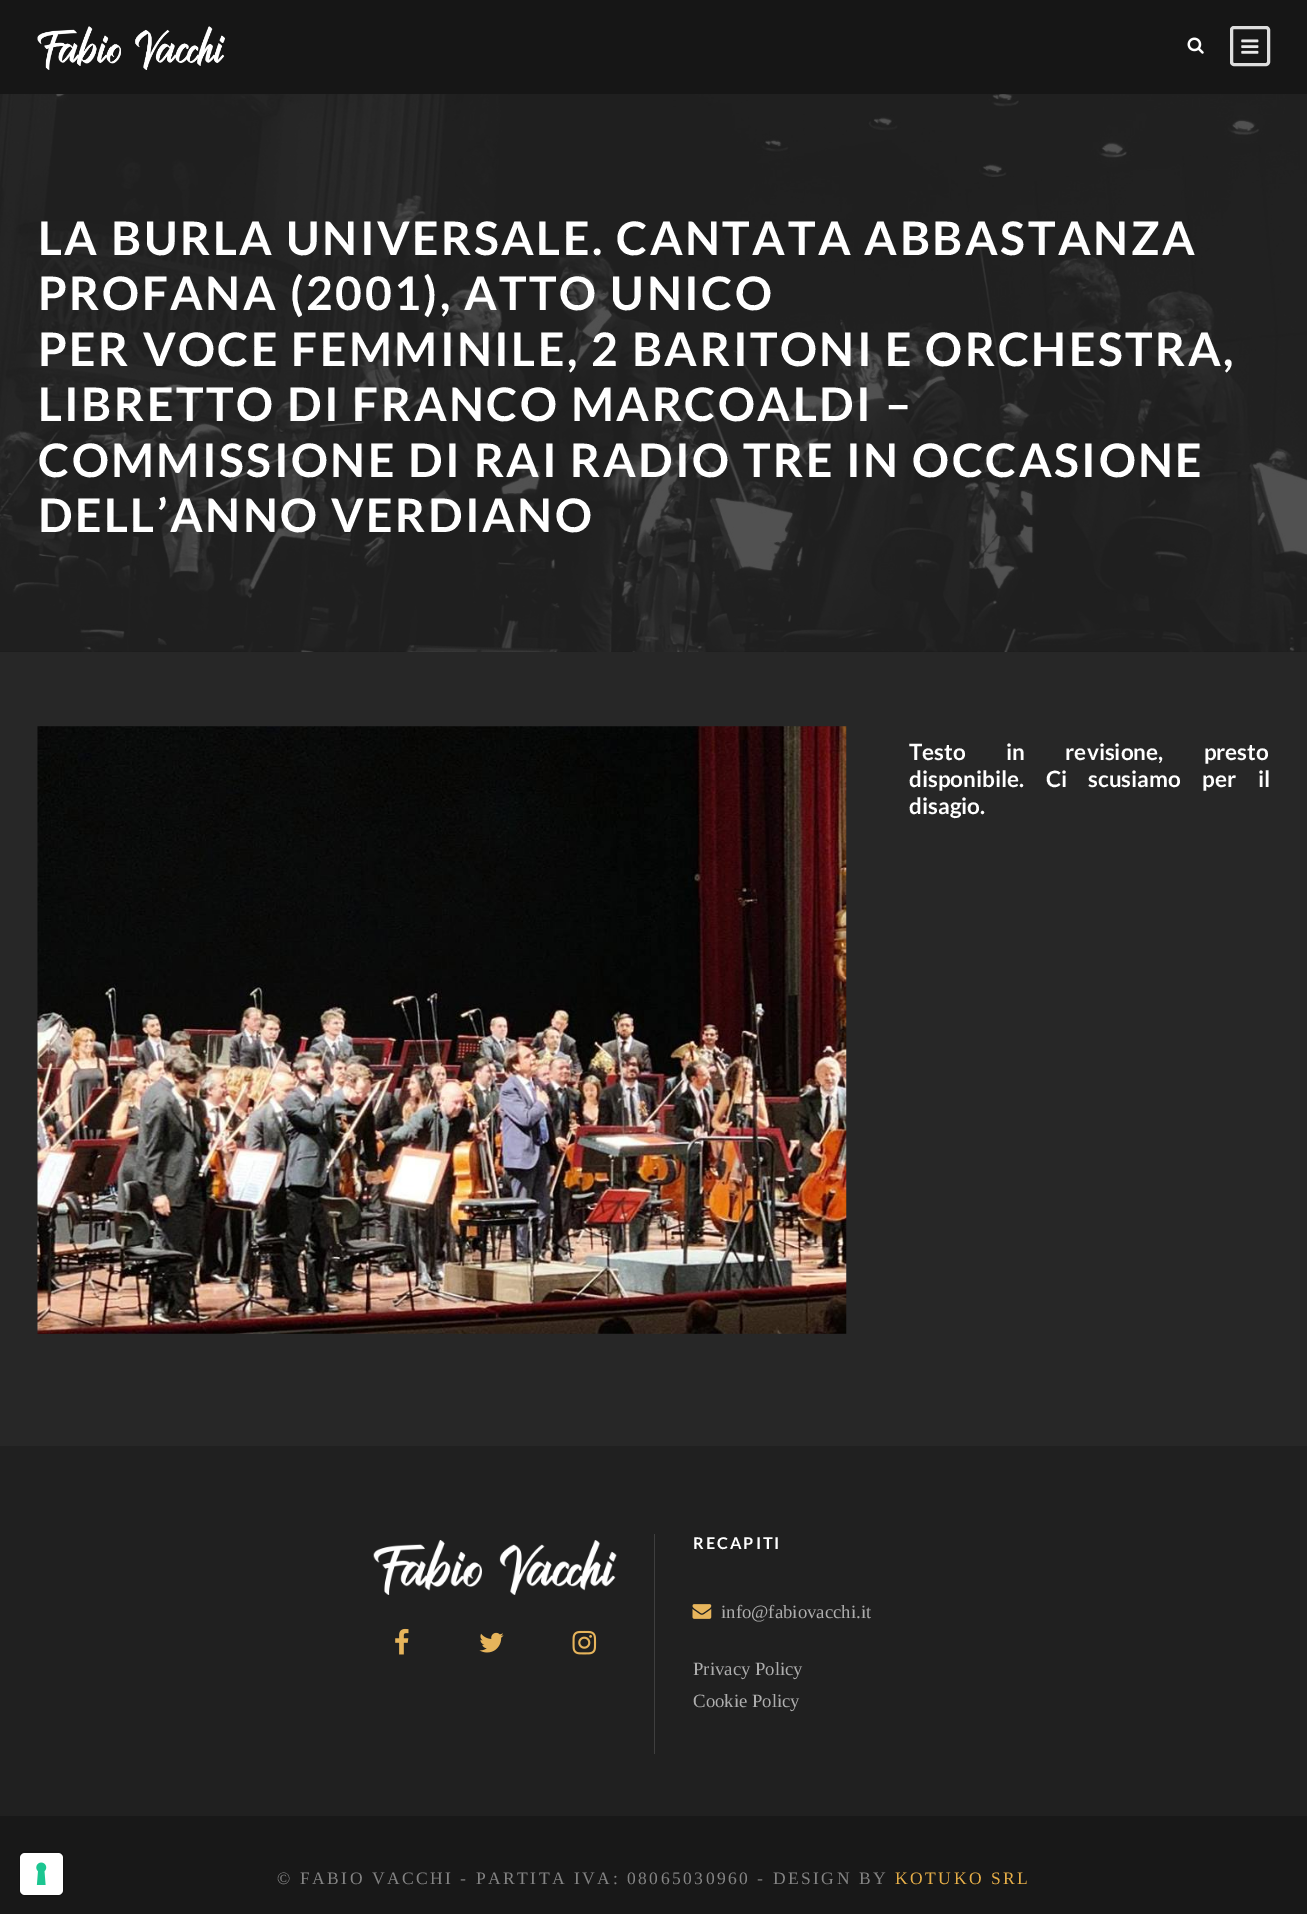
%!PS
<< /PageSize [1307 1914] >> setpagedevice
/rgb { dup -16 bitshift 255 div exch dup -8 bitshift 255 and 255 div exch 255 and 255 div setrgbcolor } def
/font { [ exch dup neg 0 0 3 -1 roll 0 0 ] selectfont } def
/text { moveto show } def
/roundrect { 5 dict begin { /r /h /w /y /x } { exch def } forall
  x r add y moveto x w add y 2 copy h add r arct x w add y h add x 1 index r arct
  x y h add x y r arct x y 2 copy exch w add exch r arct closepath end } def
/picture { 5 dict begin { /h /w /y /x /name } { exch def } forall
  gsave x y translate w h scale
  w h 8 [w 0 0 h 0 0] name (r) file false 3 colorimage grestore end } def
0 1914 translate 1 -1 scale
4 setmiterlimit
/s1 { /Lato-Bold 22.5 font 16#FFFFFF rgb } def
/s2 { /LiberationSerif-Regular 18.75 font 16#ADADAD rgb } def
16#272727 rgb
0 0 1307 1914 rectfill
16#161616 rgb
0 0 1307 94 rectfill
(pic1.raw) 37 26 188 44 picture
(pic2.raw) 1187 37 17 17 picture
16#DDDDDD rgb
3 setlinewidth
1231.5 27.5 37 37 2.5 roundrect stroke
(pic3.raw) 1241 39 18 15 picture
(pic4.raw) 0 94 1307 558 picture
/Lato-Bold 46.25 font
16#FFFFFF rgb
38 255 moveto 2.5 0 (LA BURLA UNIVERSALE. CANTATA ABBASTANZA) ashow
38 310 moveto 2.5 0 (PROFANA \(2001\), ATTO UNICO) ashow
38 366 moveto 2.5 0 (PER VOCE FEMMINILE, 2 BARITONI E ORCHESTRA,) ashow
38 421 moveto 2.5 0 (LIBRETTO DI FRANCO MARCOALDI –) ashow
38 477 moveto 2.5 0 (COMMISSIONE DI RAI RADIO TRE IN OCCASIONE) ashow
38 532 moveto 2.5 0 (DELL’ANNO VERDIANO) ashow
(pic5.raw) 37 726 810 608 picture
/Lato-Bold 22.5 font
909 760 moveto 36 0 32 (Testo in revisione, presto) widthshow
909 787 moveto 17 0 32 (disponibile. Ci scusiamo per il) widthshow
(disagio.) 909 814 text
16#202020 rgb
0 1446 1307 370 rectfill
(pic6.raw) 373 1540 244 55 picture
(pic7.raw) 395 1628 14 27 picture
(pic8.raw) 479 1632 25 21 picture
(pic9.raw) 572 1630 25 25 picture
16#3F3F3F rgb
654 1534 1 220 rectfill
/Lato-Bold 16.25 font
16#FFFFFF rgb
693 1549 moveto 2 0 (RECAPITI) ashow
(pic10.raw) 692 1604 20 15 picture
s2
(info@fabiovacchi.it) 721 1618 text
(Privacy Policy) 693 1675 text
(Cookie Policy) 693 1707 text
16#181818 rgb
0 1816 1307 98 rectfill
/LiberationSerif-Regular 17.5 font
16#838383 rgb
277 1884 moveto 2.5 0 (© FABIO VACCHI - PARTITA IVA: 08065030960 - DESIGN BY) ashow
16#E6AE48 rgb
895 1884 moveto 2.5 0 (KOTUKO SRL) ashow
16#141414 rgb
1 setlinewidth
19.5 1851.5 44 44 5.5 roundrect stroke
16#FFFFFF rgb
20 1853 43 42 5 roundrect fill
(pic11.raw) 36 1862 11 23 picture
showpage
